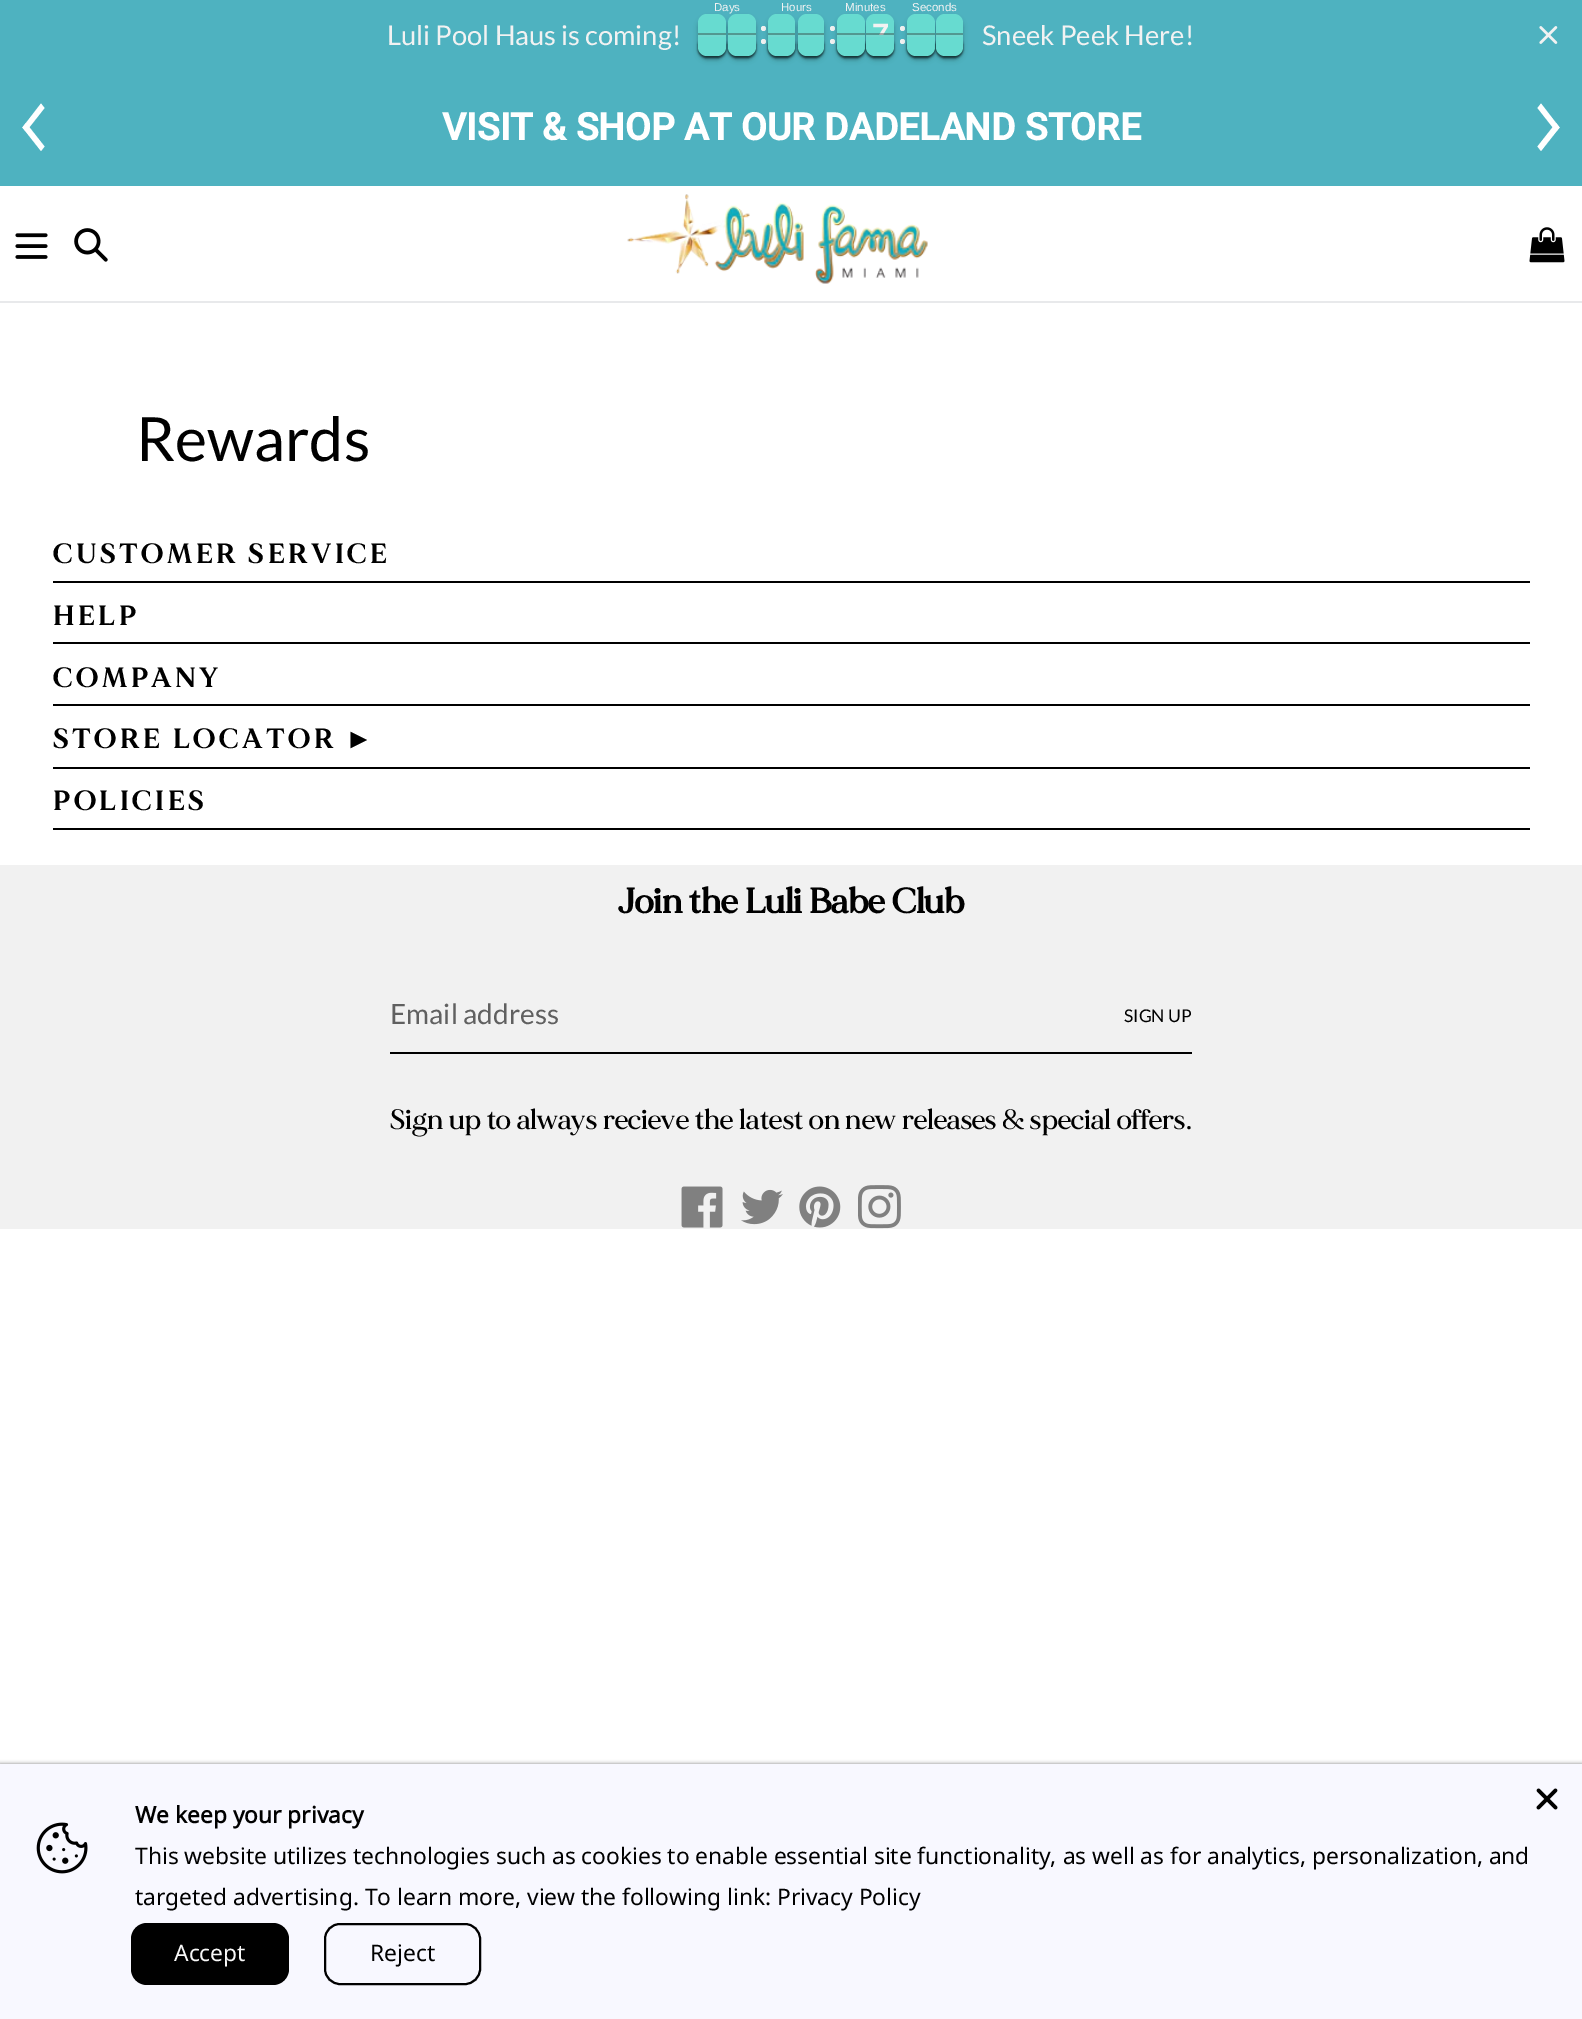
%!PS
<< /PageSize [1582 2019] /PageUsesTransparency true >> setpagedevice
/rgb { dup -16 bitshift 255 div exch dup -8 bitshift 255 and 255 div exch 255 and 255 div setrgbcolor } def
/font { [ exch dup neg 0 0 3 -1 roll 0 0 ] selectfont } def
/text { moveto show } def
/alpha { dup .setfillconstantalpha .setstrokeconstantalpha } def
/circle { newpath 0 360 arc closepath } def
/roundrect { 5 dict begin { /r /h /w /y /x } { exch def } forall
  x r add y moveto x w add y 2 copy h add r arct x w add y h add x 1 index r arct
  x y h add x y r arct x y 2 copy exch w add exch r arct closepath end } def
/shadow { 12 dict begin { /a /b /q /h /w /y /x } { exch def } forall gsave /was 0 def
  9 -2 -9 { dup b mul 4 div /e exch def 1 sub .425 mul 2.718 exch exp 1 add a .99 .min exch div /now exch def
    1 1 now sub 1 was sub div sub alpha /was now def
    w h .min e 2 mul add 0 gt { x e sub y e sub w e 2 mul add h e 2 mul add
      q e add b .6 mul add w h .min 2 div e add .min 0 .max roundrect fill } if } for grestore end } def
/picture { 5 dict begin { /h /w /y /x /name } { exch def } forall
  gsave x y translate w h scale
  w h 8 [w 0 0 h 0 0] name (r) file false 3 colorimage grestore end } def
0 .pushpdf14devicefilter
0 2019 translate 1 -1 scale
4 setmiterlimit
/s1 { /Lato-Regular 27.25 font 16#F2F2F2 rgb } def
/s2 { /LiberationSans-Regular 11.5 font 16#F2F2F2 rgb } def
/s3 { /LiberationSans-Bold 31 font 16#F2F2F2 rgb } def
/s4 { /Roboto-Bold 37.5 font 16#FFFFFF rgb } def
/s5 { /Lato-Regular 61 font 16#000000 rgb } def
/s6 { /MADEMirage-Bold 35 font 16#000000 rgb } def
/s7 { /Lato-Regular 28 font 16#606060 rgb } def
/s8 { /Lato-Regular 17.5 font 16#000000 rgb } def
/s9 { /MADEMirage-Medium 28 font 16#000000 rgb } def
/s10 { /NotoSans-Bold 22.75 font 16#000000 rgb } def
/s11 { /NotoSans-Regular 22.75 font 16#000000 rgb } def
/s12 { /NotoSans-Regular 22.75 font 16#F8F8F8 rgb } def
16#FFFFFF rgb
0 0 1582 2019 rectfill
16#4EB2C0 rgb
0 0 1582 186 rectfill
s1
(Luli Pool Haus is coming!) 387 45 text
16#000000 rgb
698 18 28 42 9 2.5 0.24 shadow
728 18 28 42 9 2.5 0.24 shadow
s2
(Days) 714 11 text
16#000000 rgb
698 37 28 21 9 1 0.4 shadow
728 37 28 21 9 1 0.4 shadow
16#67DBD0 rgb
707 14 moveto 717 14 lineto 722 14 726 18 726 23 curveto 726 35 lineto 698 35 lineto 698 23 lineto 698 18 702 14 707 14 curveto closepath fill
0.4 alpha
16#333333 rgb
698 33 28 2 rectfill
1 alpha
16#000000 rgb
698 37 28 21 9 1 0.4 shadow
16#67DBD0 rgb
698 35 moveto 726 35 lineto 726 47 lineto 726 52 722 56 717 56 curveto 707 56 lineto 702 56 698 52 698 47 curveto closepath fill
0.1 alpha
16#CCCCCC rgb
698 35 28 2 rectfill
1 alpha
16#67DBD0 rgb
737 14 moveto 747 14 lineto 752 14 756 18 756 23 curveto 756 35 lineto 728 35 lineto 728 23 lineto 728 18 732 14 737 14 curveto closepath fill
0.4 alpha
16#333333 rgb
728 33 28 2 rectfill
1 alpha
16#000000 rgb
728 37 28 21 9 1 0.4 shadow
16#67DBD0 rgb
728 35 moveto 756 35 lineto 756 47 lineto 756 52 752 56 747 56 curveto 737 56 lineto 732 56 728 52 728 47 curveto closepath fill
0.1 alpha
16#CCCCCC rgb
728 35 28 2 rectfill
1 alpha
16#F2F2F2 rgb
763.5 28.5 2.5 circle fill
763.5 41.5 2.5 circle fill
16#000000 rgb
768 18 27 42 9 2.5 0.24 shadow
798 18 26 42 9 2.5 0.24 shadow
s2
(Hours) 781 11 text
16#000000 rgb
768 37 27 21 9 1 0.4 shadow
798 37 26 21 9 1 0.4 shadow
16#67DBD0 rgb
777 14 moveto 786 14 lineto 791 14 795 18 795 23 curveto 795 35 lineto 768 35 lineto 768 23 lineto 768 18 772 14 777 14 curveto closepath fill
0.4 alpha
16#333333 rgb
768 33 27 2 rectfill
1 alpha
16#000000 rgb
768 37 27 21 9 1 0.4 shadow
16#67DBD0 rgb
768 35 moveto 795 35 lineto 795 47 lineto 795 52 791 56 786 56 curveto 777 56 lineto 772 56 768 52 768 47 curveto closepath fill
0.1 alpha
16#CCCCCC rgb
768 35 27 2 rectfill
1 alpha
16#67DBD0 rgb
807 14 moveto 815 14 lineto 820 14 824 18 824 23 curveto 824 35 lineto 798 35 lineto 798 23 lineto 798 18 802 14 807 14 curveto closepath fill
0.4 alpha
16#333333 rgb
798 33 26 2 rectfill
1 alpha
16#000000 rgb
798 37 26 21 9 1 0.4 shadow
16#67DBD0 rgb
798 35 moveto 824 35 lineto 824 47 lineto 824 52 820 56 815 56 curveto 807 56 lineto 802 56 798 52 798 47 curveto closepath fill
0.1 alpha
16#CCCCCC rgb
798 35 26 2 rectfill
1 alpha
16#F2F2F2 rgb
832.5 28.5 2.5 circle fill
832.5 41.5 2.5 circle fill
16#000000 rgb
837 18 28 42 9 2.5 0.24 shadow
866 18 28 42 9 2.5 0.24 shadow
s2
(Minutes) 845 11 text
16#000000 rgb
837 37 28 21 9 1 0.4 shadow
866 37 28 21 9 1 0.4 shadow
16#67DBD0 rgb
846 14 moveto 856 14 lineto 861 14 865 18 865 23 curveto 865 35 lineto 837 35 lineto 837 23 lineto 837 18 841 14 846 14 curveto closepath fill
0.4 alpha
16#333333 rgb
837 33 28 2 rectfill
1 alpha
16#000000 rgb
837 37 28 21 9 1 0.4 shadow
16#67DBD0 rgb
837 35 moveto 865 35 lineto 865 47 lineto 865 52 861 56 856 56 curveto 846 56 lineto 841 56 837 52 837 47 curveto closepath fill
0.1 alpha
16#CCCCCC rgb
837 35 28 2 rectfill
1 alpha
16#67DBD0 rgb
875 14 moveto 885 14 lineto 890 14 894 18 894 23 curveto 894 35 lineto 866 35 lineto 866 23 lineto 866 18 870 14 875 14 curveto closepath fill
s3
(7) 872 45 text
0.4 alpha
16#333333 rgb
866 33 28 2 rectfill
1 alpha
16#000000 rgb
866 37 28 21 9 1 0.4 shadow
16#67DBD0 rgb
866 35 moveto 894 35 lineto 894 47 lineto 894 52 890 56 885 56 curveto 875 56 lineto 870 56 866 52 866 47 curveto closepath fill
0.1 alpha
16#CCCCCC rgb
866 35 28 2 rectfill
1 alpha
16#F2F2F2 rgb
902.5 28.5 2.5 circle fill
902.5 41.5 2.5 circle fill
16#000000 rgb
907 18 28 42 9 2.5 0.24 shadow
936 18 27 42 9 2.5 0.24 shadow
s2
(Seconds) 912 11 text
16#000000 rgb
907 37 28 21 9 1 0.4 shadow
936 37 27 21 9 1 0.4 shadow
16#67DBD0 rgb
916 14 moveto 926 14 lineto 931 14 935 18 935 23 curveto 935 35 lineto 907 35 lineto 907 23 lineto 907 18 911 14 916 14 curveto closepath fill
0.4 alpha
16#333333 rgb
907 33 28 2 rectfill
1 alpha
16#000000 rgb
907 37 28 21 9 1 0.4 shadow
16#67DBD0 rgb
907 35 moveto 935 35 lineto 935 47 lineto 935 52 931 56 926 56 curveto 916 56 lineto 911 56 907 52 907 47 curveto closepath fill
0.1 alpha
16#CCCCCC rgb
907 35 28 2 rectfill
1 alpha
16#67DBD0 rgb
945 14 moveto 954 14 lineto 959 14 963 18 963 23 curveto 963 35 lineto 936 35 lineto 936 23 lineto 936 18 940 14 945 14 curveto closepath fill
0.4 alpha
16#333333 rgb
936 33 27 2 rectfill
1 alpha
16#000000 rgb
936 37 27 21 9 1 0.4 shadow
16#67DBD0 rgb
936 35 moveto 963 35 lineto 963 47 lineto 963 52 959 56 954 56 curveto 945 56 lineto 940 56 936 52 936 47 curveto closepath fill
0.1 alpha
16#CCCCCC rgb
936 35 27 2 rectfill
1 alpha
s1
(Sneek Peek Here!) 982 45 text
(pic1.raw) 1539 26 19 18 picture
16#FFFFFF rgb
22.5 127.5 moveto 41 103.5 lineto 44.5 108 lineto 26 131.5 lineto closepath fill
22.5 127.5 moveto 26 123 lineto 44.5 146.5 lineto 41 151 lineto closepath fill
s4
(VISIT & SHOP AT OUR DADELAND STORE) 442 140 text
1559.5 127.5 moveto 1541 151 lineto 1537.5 146.5 lineto 1556 123 lineto closepath fill
1559.5 127.5 moveto 1556 131.5 lineto 1537.5 108 lineto 1541 103.5 lineto closepath fill
16#E8E9EB rgb
0 301 1582 2 rectfill
(pic2.raw) 15 233 33 26 picture
(pic3.raw) 74 228 34 34 picture
(pic4.raw) 627 194 301 90 picture
(pic5.raw) 1529 227 36 36 picture
s5
(Rewards) 136 461 text
53 581 1477 2 rectfill
/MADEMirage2-Bold 28 font
53 563 moveto 3.5 0 (CUSTOMER SERVICE) ashow
53 642 1477 2 rectfill
53 625 moveto 3.5 0 (HELP) ashow
53 704 1477 2 rectfill
53 687 moveto 3.5 0 (COMPANY) ashow
53 767 1477 2 rectfill
53 748 moveto 3.5 0 (STORE LOCATOR) ashow
/LiberationSerif-Bold 28 font
345 748 moveto 3.5 0 (►) ashow
53 828 1477 2 rectfill
/MADEMirage2-Bold 28 font
53 810 moveto 3.5 0 (POLICIES) ashow
16#F1F1F1 rgb
0 865 1582 364 rectfill
s6
(Join the Luli Babe Club) 618 913 text
390 1052 802 2 rectfill
s7
(Email address) 390 1024 text
s8
(SIGN UP) 1124 1022 text
s9
(Sign up to always recieve the latest on new releases & special offers.) 390 1129 text
(pic6.raw) 681 1186 42 42 picture
(pic7.raw) 741 1189 42 36 picture
(pic8.raw) 799 1186 42 42 picture
(pic9.raw) 858 1185 43 44 picture
0 1764 1582 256 0 2 0.5 shadow
16#F8F8FF rgb
0 1764 1582 255 rectfill
(pic10.raw) 1536 1788 22 22 picture
(pic11.raw) 36 1822 52 52 picture
s10
(We keep your privacy) 135 1823 text
s11
(This website utilizes technologies such as cookies to enable essential site functionality, as well as for analytics, personalization, and) 135 1864 text
(targeted advertising. To learn more, view the following link: Privacy Policy) 135 1905 text
131 1923 158 62 16 roundrect fill
s12
(Accept) 174 1961 text
16#000000 rgb
2 setlinewidth
325 1924 155 60 15 roundrect stroke
(Reject) 370 1961 text
.poppdf14devicefilter showpage
